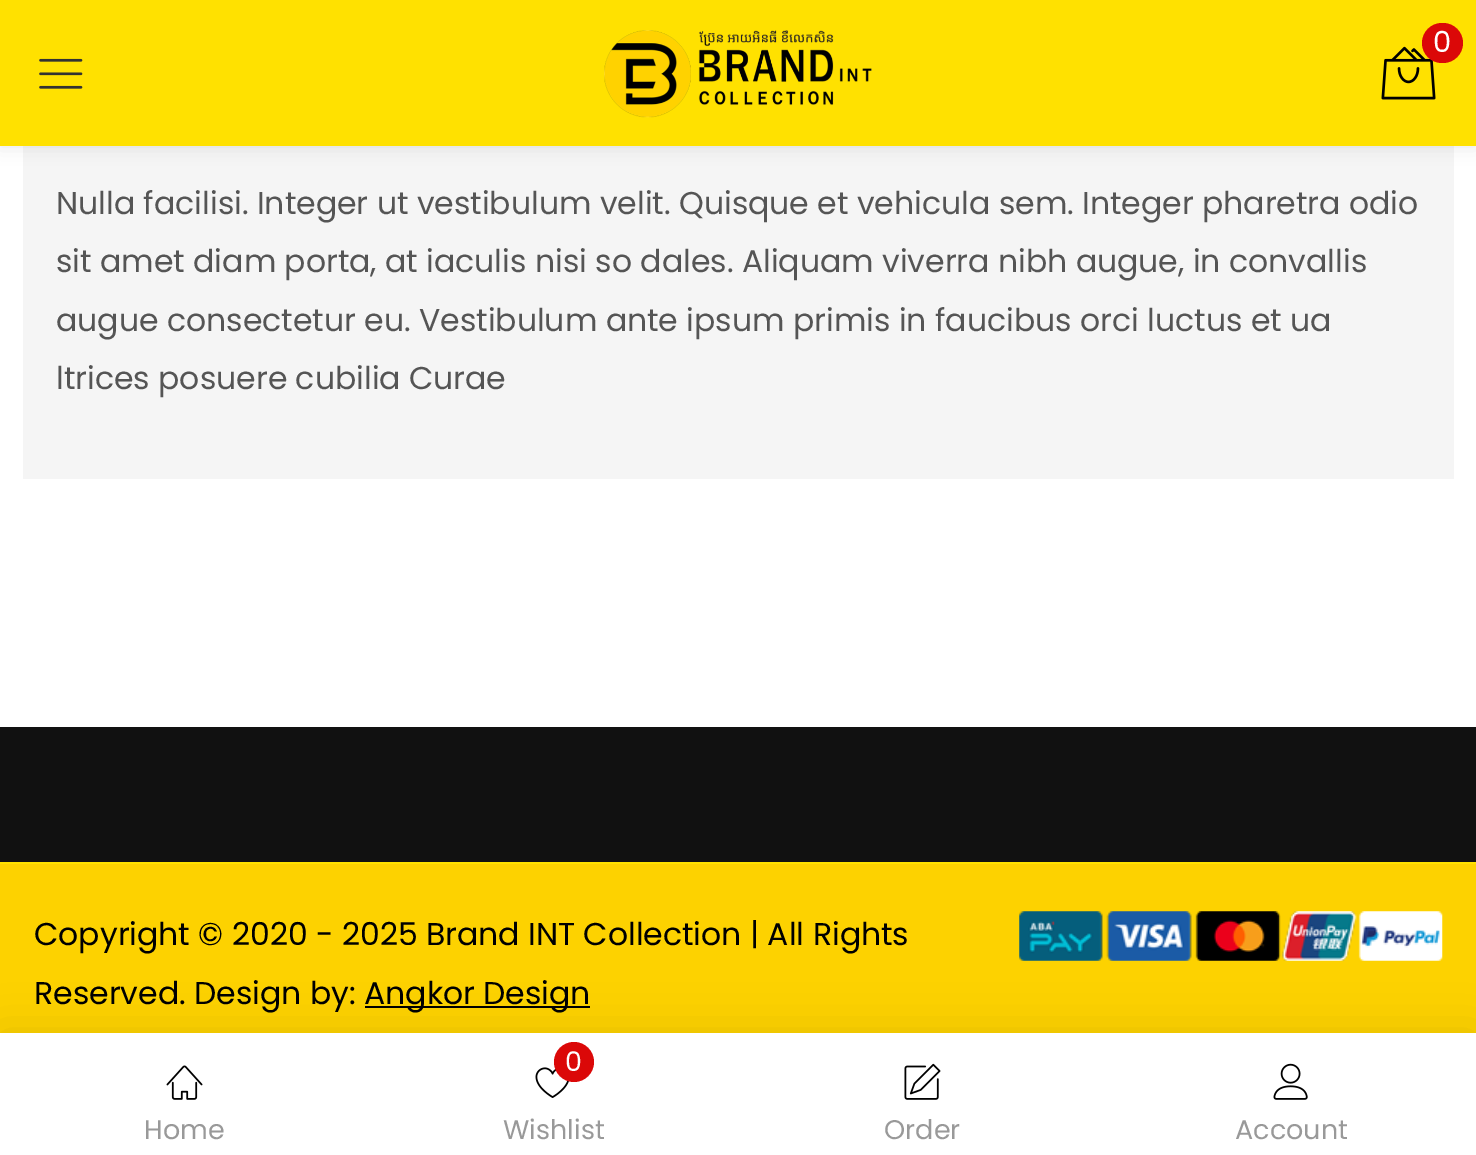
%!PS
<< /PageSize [1476 1155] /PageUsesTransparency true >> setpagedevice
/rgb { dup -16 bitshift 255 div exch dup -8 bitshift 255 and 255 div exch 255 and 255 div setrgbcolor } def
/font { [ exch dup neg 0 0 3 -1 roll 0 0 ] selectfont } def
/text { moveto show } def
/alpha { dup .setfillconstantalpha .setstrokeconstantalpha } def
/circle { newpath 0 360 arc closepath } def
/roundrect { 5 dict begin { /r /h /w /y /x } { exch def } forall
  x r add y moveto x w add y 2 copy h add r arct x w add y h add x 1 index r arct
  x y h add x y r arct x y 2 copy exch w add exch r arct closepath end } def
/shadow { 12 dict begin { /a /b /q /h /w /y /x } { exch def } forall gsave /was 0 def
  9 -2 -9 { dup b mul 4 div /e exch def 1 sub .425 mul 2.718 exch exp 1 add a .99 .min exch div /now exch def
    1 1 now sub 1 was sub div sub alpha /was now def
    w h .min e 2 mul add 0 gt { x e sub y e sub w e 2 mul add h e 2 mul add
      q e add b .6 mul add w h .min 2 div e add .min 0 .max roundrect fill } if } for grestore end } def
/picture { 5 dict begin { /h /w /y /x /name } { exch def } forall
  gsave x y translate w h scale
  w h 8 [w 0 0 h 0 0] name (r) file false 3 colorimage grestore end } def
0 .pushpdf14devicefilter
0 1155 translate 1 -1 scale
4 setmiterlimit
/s1 { /Poppins-Regular 29 font 16#FFFFFF rgb } def
/s2 { /Poppins-Regular 31.5 font 16#555555 rgb } def
/s3 { /Poppins-Regular 31.5 font 16#000000 rgb } def
/s4 { /Poppins-Regular 27 font 16#999999 rgb } def
/s5 { /Poppins-Regular 27 font 16#FFFFFF rgb } def
16#FFFFFF rgb
0 0 1476 1155 rectfill
16#F5F5F5 rgb
23 146 1431 333 rectfill
16#000000 rgb
0 0 1476 146 0 9 0.1 shadow
16#FFE100 rgb
0 0 1476 146 rectfill
(pic1.raw) 604 30 268 88 picture
(pic2.raw) 1381 46 55 54 picture
16#DB0808 rgb
1422 23 41 40 20 roundrect fill
s1
(0) 1433 52 text
(pic3.raw) 39 58 44 31 picture
s2
(Nulla facilisi. Integer ut vestibulum velit. Quisque et vehicula sem. Integer pharetra odio) 56 214 text
(sit amet diam porta, at iaculis nisi so dales. Aliquam viverra nibh augue, in convallis) 56 272 text
(augue consectetur eu. Vestibulum ante ipsum primis in faucibus orci luctus et ua) 56 331 text
(ltrices posuere cubilia Curae) 56 389 text
16#111111 rgb
0 727 1476 135 rectfill
16#FDD200 rgb
0 864 1476 169 rectfill
16#FFE100 rgb
0 862 1476 2 rectfill
s3
(Copyright © 2020 - 2025 Brand INT Collection | All Rights) 34 945 text
(Reserved. Design by:) 34 1004 text
365 1006 225 2 rectfill
(Angkor Design) 364 1004 text
(pic4.raw) 1019 911 424 50 picture
0 1033 1476 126 0 22.5 0.1 shadow
16#FFFFFF rgb
0 1033 1476 122 rectfill
(pic5.raw) 166 1065 37 35 picture
s4
(Home) 144 1139 text
(pic6.raw) 535 1067 34 31 picture
16#DB0808 rgb
574 1062 20 circle fill
s5
(0) 565 1071 text
s4
(Wishlist) 503 1139 text
(pic7.raw) 904 1063 37 37 picture
(Order) 884 1139 text
(pic8.raw) 1273 1063 35 37 picture
(Account) 1235 1139 text
.poppdf14devicefilter showpage
